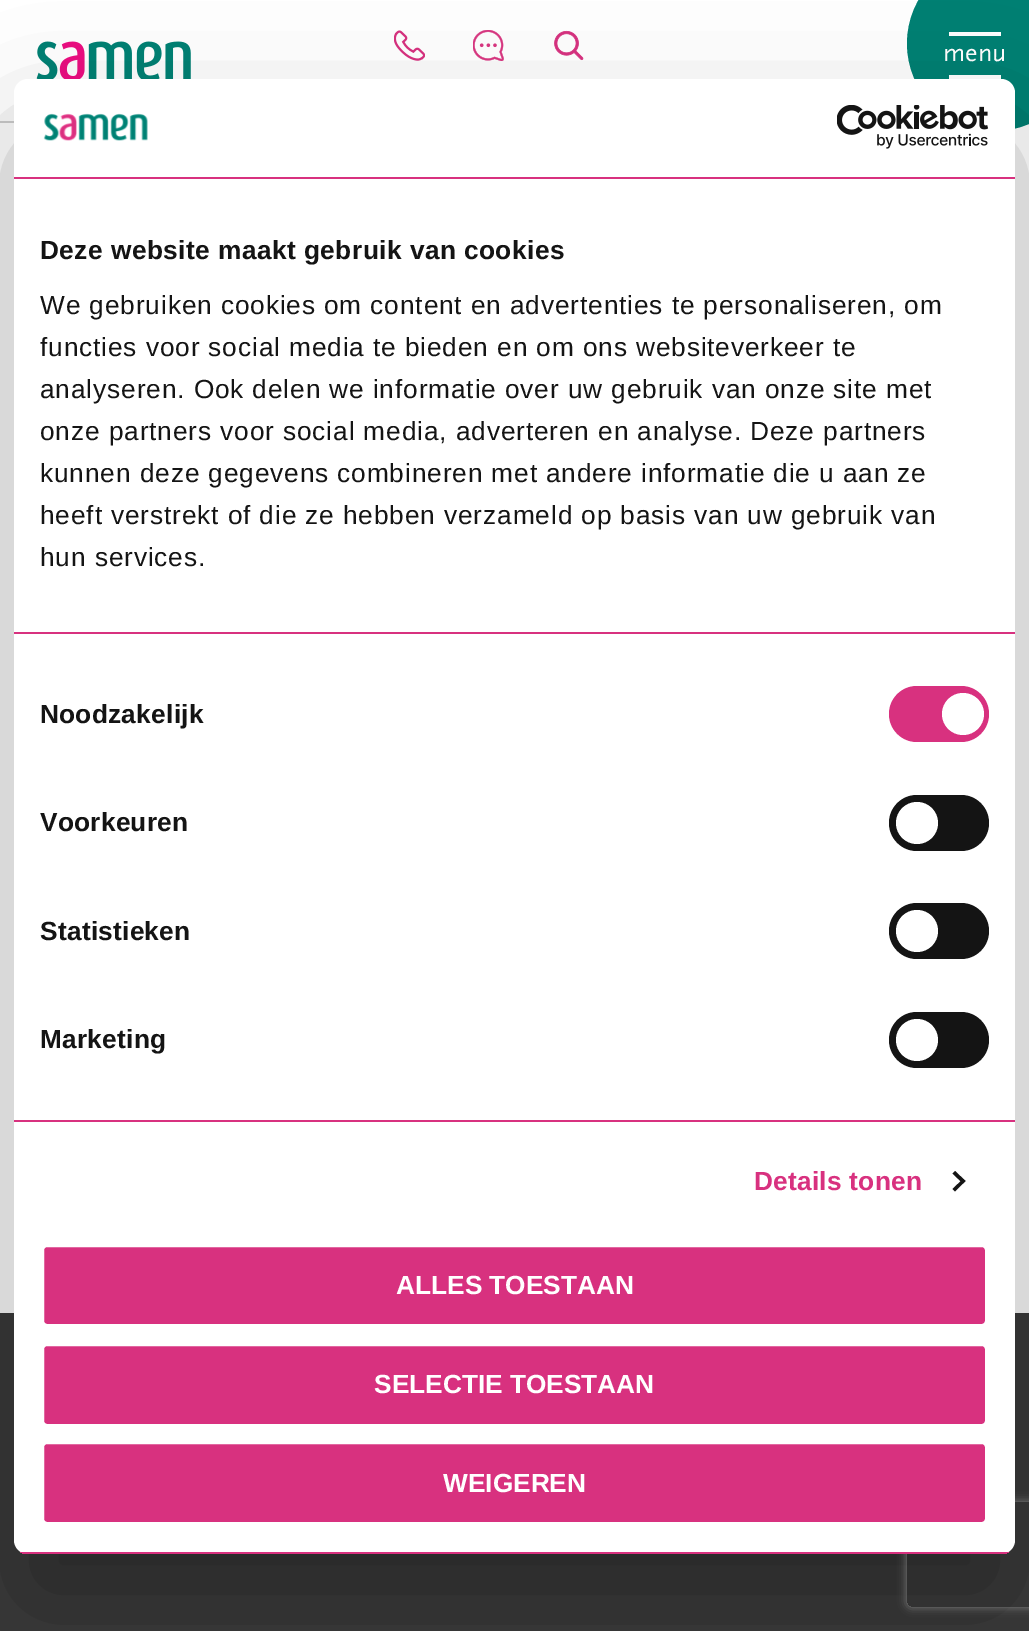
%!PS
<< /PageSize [1029 1631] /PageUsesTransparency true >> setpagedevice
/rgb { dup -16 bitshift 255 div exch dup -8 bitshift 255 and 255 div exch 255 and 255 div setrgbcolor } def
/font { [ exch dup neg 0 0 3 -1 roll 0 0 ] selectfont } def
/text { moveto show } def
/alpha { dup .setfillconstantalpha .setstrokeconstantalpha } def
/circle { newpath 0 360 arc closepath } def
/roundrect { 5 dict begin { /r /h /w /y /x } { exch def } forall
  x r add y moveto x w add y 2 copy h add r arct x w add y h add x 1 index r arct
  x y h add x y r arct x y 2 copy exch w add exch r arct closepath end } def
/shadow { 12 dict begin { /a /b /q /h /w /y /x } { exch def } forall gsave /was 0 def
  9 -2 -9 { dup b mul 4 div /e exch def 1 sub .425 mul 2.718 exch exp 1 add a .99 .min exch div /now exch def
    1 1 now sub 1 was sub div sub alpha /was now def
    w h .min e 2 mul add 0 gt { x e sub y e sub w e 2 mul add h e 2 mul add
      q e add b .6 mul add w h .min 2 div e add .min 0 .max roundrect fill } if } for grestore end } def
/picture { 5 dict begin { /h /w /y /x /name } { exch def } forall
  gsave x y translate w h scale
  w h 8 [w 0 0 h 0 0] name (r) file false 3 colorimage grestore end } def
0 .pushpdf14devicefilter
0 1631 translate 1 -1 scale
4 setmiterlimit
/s1 { /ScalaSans-Regular 26.25 font 16#FFFFFF rgb } def
/s2 { /LiberationSans-Bold 26.25 font 16#FFFFFF rgb } def
16#FFFFFF rgb
0 0 1029 1631 rectfill
16#CECECE rgb
0 121 14 2 rectfill
(pic1.raw) 36 41 155 38 picture
(pic2.raw) 394 30 31 31 picture
(pic3.raw) 473 30 31 31 picture
(pic4.raw) 554 30 30 31 picture
16#008073 rgb
994.5 43.5 87.5 circle fill
16#FFFFFF rgb
949 32 52 4 rectfill
s1
(menu) 943 61 text
949 75 52 4 rectfill
16#3B3B3B rgb
0 1313 1029 318 rectfill
16#000000 rgb
14 135 1001 1475 14 59.5 0.3 shadow
gsave
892 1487 moveto 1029 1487 lineto 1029 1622 lineto 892 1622 lineto closepath 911 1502 moveto 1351 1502 lineto 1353 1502 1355 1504 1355 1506 curveto 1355 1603 lineto 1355 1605 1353 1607 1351 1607 curveto 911 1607 lineto 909 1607 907 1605 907 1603 curveto 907 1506 lineto 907 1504 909 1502 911 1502 curveto closepath eoclip newpath
16#808080 rgb
907 1502 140 105 4 4.5 1 shadow
grestore
16#FFFFFF rgb
14 79 1001 1475 14 roundrect fill
16#D8317F rgb
14 177 1001 2 rectfill
(pic5.raw) 43 113 105 28 picture
(pic6.raw) 837 105 152 44 picture
14 632 1001 2 rectfill
/LiberationSans-Bold 26.25 font
16#141414 rgb
40 259 moveto 0.45 0 (Deze website maakt gebruik van cookies) ashow
/LiberationSans-Regular 26.25 font
40 314 moveto 0.88 0 (We gebruiken cookies om content en advertenties te personaliseren, om) ashow
40 356 moveto 0.88 0 (functies voor social media te bieden en om ons websiteverkeer te) ashow
40 398 moveto 0.88 0 (analyseren. Ook delen we informatie over uw gebruik van onze site met) ashow
40 440 moveto 0.88 0 (onze partners voor social media, adverteren en analyse. Deze partners) ashow
40 482 moveto 0.88 0 (kunnen deze gegevens combineren met andere informatie die u aan ze) ashow
40 524 moveto 0.88 0 (heeft verstrekt of die ze hebben verzameld op basis van uw gebruik van) ashow
40 566 moveto 0.88 0 (hun services.) ashow
16#D8317F rgb
14 1120 1001 2 rectfill
/LiberationSans-Bold 26.25 font
16#141414 rgb
40 723 moveto 0.25 0 (Noodzakelijk) ashow
16#D8317F rgb
889 686 100 56 28 roundrect fill
16#FFFFFF rgb
963 714 21 circle fill
16#141414 rgb
40 831 moveto 0.25 0 (Voorkeuren) ashow
889 795 100 56 28 roundrect fill
16#FFFFFF rgb
917 823 21 circle fill
16#141414 rgb
40 940 moveto 0.25 0 (Statistieken) ashow
889 903 100 56 28 roundrect fill
16#FFFFFF rgb
917 931 21 circle fill
16#141414 rgb
40 1048 moveto 0.25 0 (Marketing) ashow
889 1012 100 56 28 roundrect fill
16#FFFFFF rgb
917 1040 21 circle fill
16#D8317F rgb
754 1190 moveto 0.25 0 (Details tonen) ashow
16#141414 rgb
955 1171 moveto 965.5 1181 lineto 963 1183.5 lineto 952.5 1173.5 lineto closepath fill
963 1179 moveto 965.5 1181 lineto 955 1191.5 lineto 952.5 1189 lineto closepath fill
gsave
14 79 1001 1475 14 roundrect clip newpath
16#D8317F rgb
14 1552 1001 2 rectfill
grestore
16#D8317F rgb
42 1245 945 81 5 roundrect gsave fill grestore
16#FFFFFF rgb
4 setlinewidth
stroke
(ALLES TOESTAAN) 396 1294 text
16#D8317F rgb
42 1344 945 82 5 roundrect gsave fill grestore
16#FFFFFF rgb
stroke
(SELECTIE TOESTAAN) 374 1393 text
16#D8317F rgb
42 1442 945 82 5 roundrect gsave fill grestore
16#FFFFFF rgb
stroke
(WEIGEREN) 443 1492 text
.poppdf14devicefilter showpage
